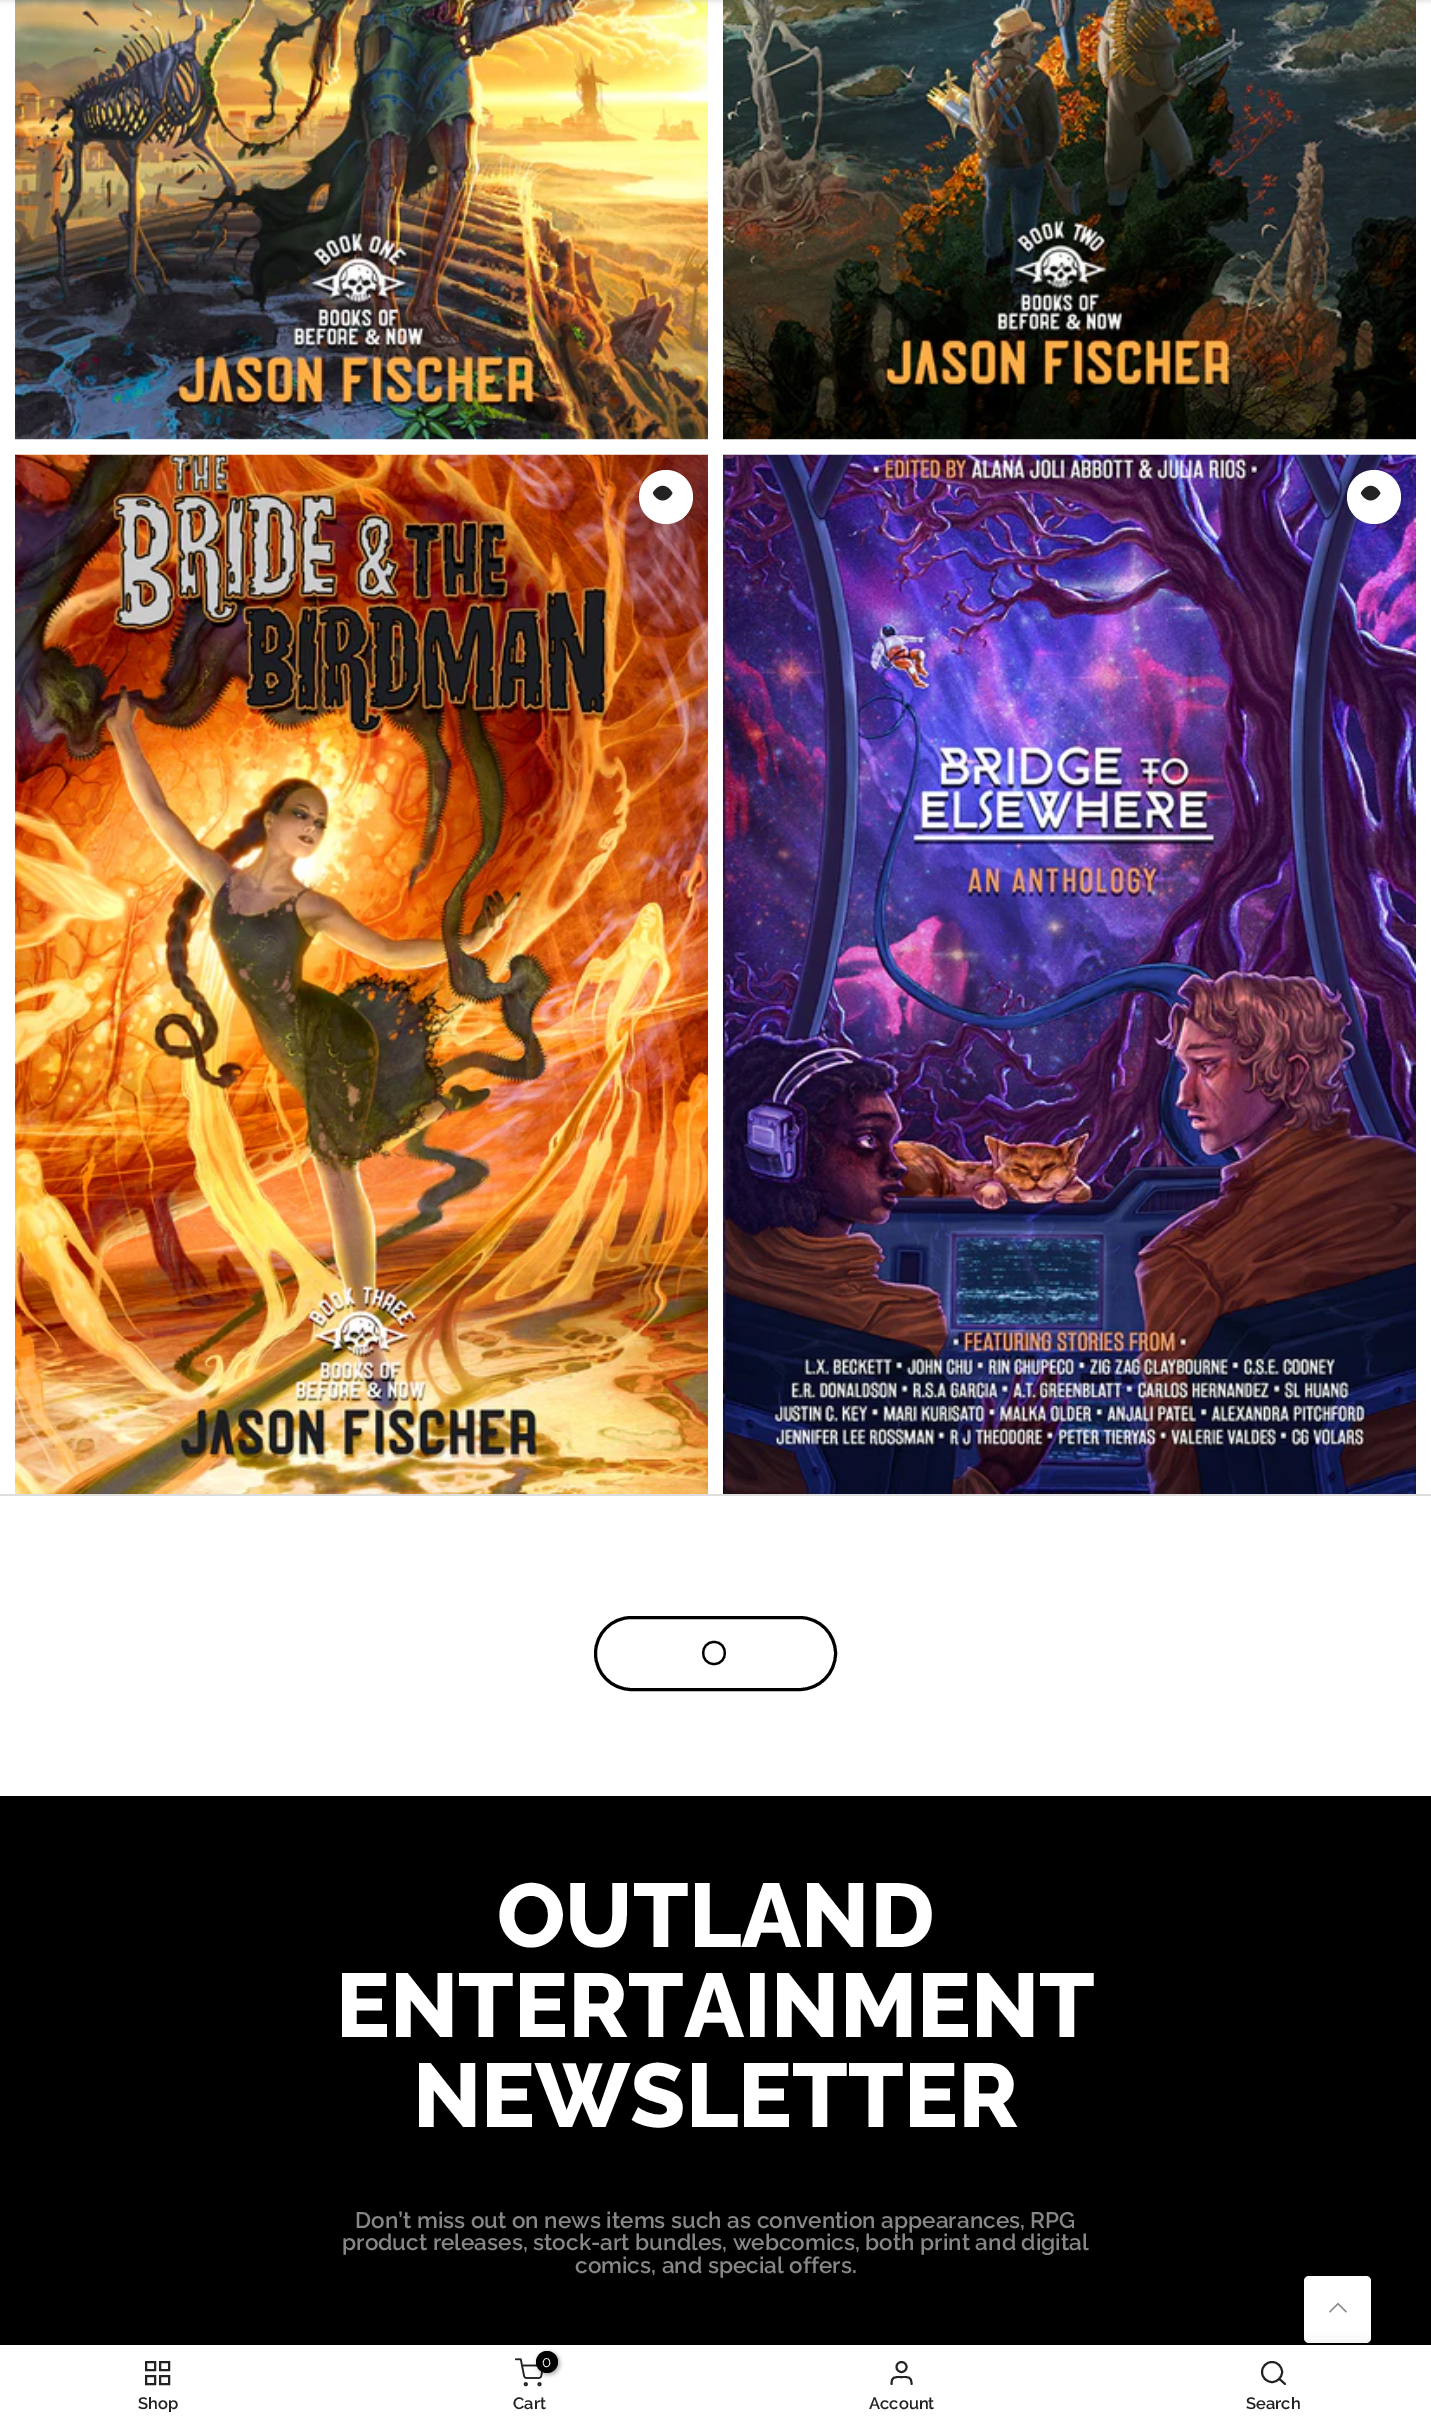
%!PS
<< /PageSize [1431 2427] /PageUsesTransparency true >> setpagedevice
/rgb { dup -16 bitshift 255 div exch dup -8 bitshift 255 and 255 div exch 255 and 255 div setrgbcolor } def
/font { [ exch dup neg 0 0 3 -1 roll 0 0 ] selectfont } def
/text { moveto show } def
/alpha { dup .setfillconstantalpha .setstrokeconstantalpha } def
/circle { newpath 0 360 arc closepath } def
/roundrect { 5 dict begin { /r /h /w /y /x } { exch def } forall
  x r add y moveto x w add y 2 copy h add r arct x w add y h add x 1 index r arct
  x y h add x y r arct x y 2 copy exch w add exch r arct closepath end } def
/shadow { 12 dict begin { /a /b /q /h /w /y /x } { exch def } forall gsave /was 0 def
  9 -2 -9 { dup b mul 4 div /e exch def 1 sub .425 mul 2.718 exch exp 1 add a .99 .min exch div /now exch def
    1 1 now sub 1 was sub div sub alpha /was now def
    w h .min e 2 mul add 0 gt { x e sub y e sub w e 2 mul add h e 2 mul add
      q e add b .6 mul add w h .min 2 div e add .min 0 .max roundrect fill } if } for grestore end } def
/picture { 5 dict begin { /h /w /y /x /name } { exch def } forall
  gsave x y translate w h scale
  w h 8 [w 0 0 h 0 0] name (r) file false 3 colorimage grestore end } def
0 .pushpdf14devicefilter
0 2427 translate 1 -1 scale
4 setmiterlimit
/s1 { /Raleway-ExtraBold 90 font 16#FFFFFF rgb } def
/s2 { /Raleway-SemiBold 22.5 font 16#878787 rgb } def
/s3 { /Raleway-SemiBold 16.5 font 16#222222 rgb } def
/s4 { /Raleway-Regular 15 font 16#FFFFFF rgb } def
16#FFFFFF rgb
0 0 1431 2427 rectfill
(pic1.raw) 15 0 693 440 picture
(pic2.raw) 723 0 693 440 picture
16#000000 rgb
0 -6 1431 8 0 2 0.1 shadow
(pic3.raw) 15 454 693 1040 picture
16#FFFFFF rgb
666 497 27 circle fill
(pic4.raw) 653 485 20 16 picture
(pic5.raw) 723 454 693 1040 picture
1374 497 27 circle fill
(pic4.raw) 1361 485 20 16 picture
16#DDDDDD rgb
0 1494 1431 2 rectfill
16#000000 rgb
3 setlinewidth
595.5 1617.5 240 72 36 roundrect stroke
2.2 setlinewidth
714 1642 moveto 728.5 1642 728.5 1664 714 1664 curveto 699.5 1664 699.5 1642 714 1642 curveto stroke
0 1796 1431 549 rectfill
s1
(OUTLAND) 497 1947 text
(ENTERTAINMENT) 336 2037 text
(NEWSLETTER) 413 2127 text
s2
(Don’t miss out on news items such as convention appearances, RPG) 355 2228 text
(product releases, stock-art bundles, webcomics, both print and digital) 342 2250 text
(comics, and special offers.) 575 2273 text
16#FFFFFF rgb
1304 2276 67 67 5 roundrect fill
(pic6.raw) 1329 2302 18 11 picture
16#000000 rgb
0 2345 1431 82 0 7 0.12 shadow
16#FFFFFF rgb
0 2345 1431 82 rectfill
16#222222 rgb
2 setlinewidth
146 2362 9 8 rectstroke
160 2362 9 8 rectstroke
146 2376 9 8 rectstroke
160 2376 9 8 rectstroke
gsave
23 2396 271 16 rectclip
s3
(Shop) 138 2409 text
grestore
(pic7.raw) 515 2358 28 29 picture
16#000000 rgb
537 2352 23 23 11.5 2 0.3 shadow
547 2362 11 circle fill
s4
(0) 542 2367 text
s3
(Cart) 513 2409 text
1.9 setlinewidth
901.5 2367 5 circle stroke
1 setlinecap
1 setlinejoin
911.5 2384 moveto 911.5 2376.5 908.5 2377 901.5 2377 curveto 894.5 2377 891.5 2376.5 891.5 2384 curveto stroke
(Account) 869 2409 text
0 setlinecap
0 setlinejoin
1272 2372 10 circle stroke
1 setlinecap
1 setlinejoin
1285 2384 moveto 1279.5 2379 lineto stroke
(Search) 1246 2409 text
.poppdf14devicefilter showpage
